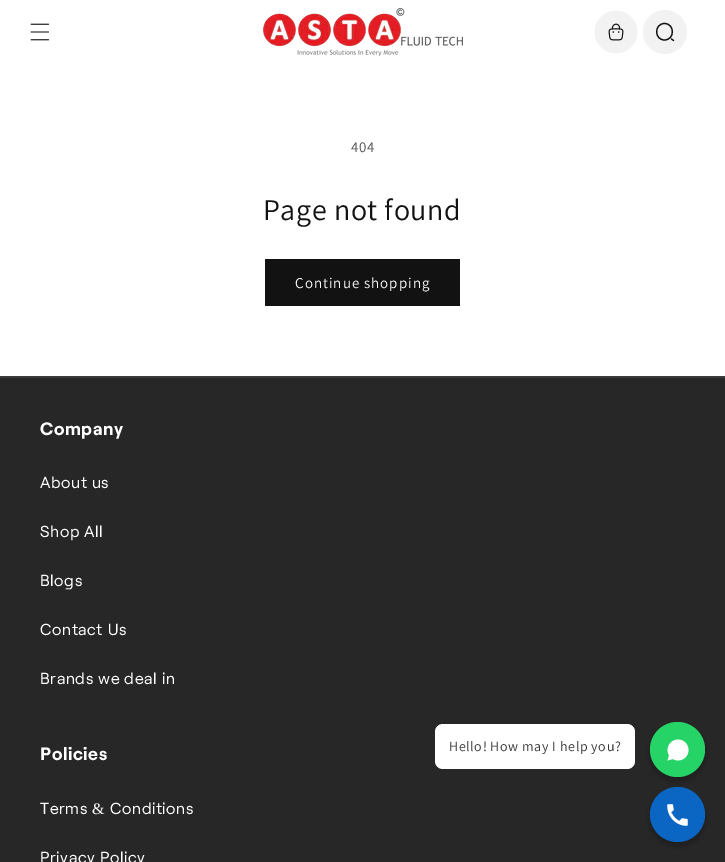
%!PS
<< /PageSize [725 862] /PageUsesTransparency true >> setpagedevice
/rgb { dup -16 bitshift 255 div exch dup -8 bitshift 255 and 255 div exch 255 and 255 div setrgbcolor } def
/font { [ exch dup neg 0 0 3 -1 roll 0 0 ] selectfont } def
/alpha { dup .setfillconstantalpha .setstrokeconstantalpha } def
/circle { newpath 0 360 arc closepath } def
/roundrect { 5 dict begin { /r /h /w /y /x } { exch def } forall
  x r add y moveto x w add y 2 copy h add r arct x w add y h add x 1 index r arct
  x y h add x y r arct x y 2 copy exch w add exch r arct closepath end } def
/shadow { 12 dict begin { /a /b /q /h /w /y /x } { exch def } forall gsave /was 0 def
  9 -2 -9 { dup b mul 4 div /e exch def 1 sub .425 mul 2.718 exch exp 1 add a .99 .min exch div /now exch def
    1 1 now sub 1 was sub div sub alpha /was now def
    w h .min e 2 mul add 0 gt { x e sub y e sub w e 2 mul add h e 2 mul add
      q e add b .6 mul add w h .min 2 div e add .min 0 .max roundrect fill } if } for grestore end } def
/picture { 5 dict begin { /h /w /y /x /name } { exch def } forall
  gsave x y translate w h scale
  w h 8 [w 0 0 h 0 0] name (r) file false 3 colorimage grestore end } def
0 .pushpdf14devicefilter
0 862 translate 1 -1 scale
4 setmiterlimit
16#FFFFFF rgb
0 0 725 862 rectfill
(pic1.raw) 30 23 20 18 picture
(pic2.raw) 263 8 200 48 picture
(pic3.raw) 594 10 44 44 picture
16#F2F2F2 rgb
665 32 22 circle fill
16#101010 rgb
1.2 setlinewidth
1 setlinecap
1 setlinejoin
664.5 40 moveto 675 40 675 23.5 664.5 23.5 curveto 654 23.5 654 40 664.5 40 curveto closepath 673.5 40.5 moveto 671.5 39 lineto stroke
/Assistant-Regular 15 font
16#4D4D4D rgb
351 152 moveto 0.6 0 (404) ashow
/Assistant-Regular 30 font
16#121212 rgb
263 220 moveto 0.6 0 (Page not found) ashow
265 259 195 47 rectfill
/Assistant-Regular 15 font
16#FFFFFF rgb
295 288 moveto 1 0 (Continue shopping) ashow
16#272727 rgb
0 378 725 484 rectfill
16#3C3C3C rgb
0 376 725 2 rectfill
/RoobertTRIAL-Bold 18 font
16#FFFFFF rgb
40 435 moveto 0.6 0 (Company) ashow
/RoobertTRIAL-Regular 16 font
40 488 moveto 0.6 0 (About us) ashow
40 537 moveto 0.6 0 (Shop All) ashow
40 586 moveto 0.6 0 (Blogs) ashow
40 635 moveto 0.6 0 (Contact Us) ashow
40 684 moveto 0.6 0 (Brands we deal in) ashow
/RoobertTRIAL-Bold 18 font
40 760 moveto 0.6 0 (Policies) ashow
/RoobertTRIAL-Regular 16 font
40 814 moveto 0.6 0 (Terms) ashow
/LiberationSerif-Regular 16 font
92 814 moveto 0.6 0 (&) ashow
/RoobertTRIAL-Regular 16 font
110 814 moveto 0.6 0 (Conditions) ashow
40 863 moveto 0.6 0 (Privacy Policy) ashow
16#000000 rgb
650 726 55 55 27.5 4 0.3 shadow
16#25D366 rgb
677.5 749.5 27.5 circle fill
16#FFFFFF rgb
435 724 200 45 8 roundrect fill
/Assistant-Regular 14 font
16#333333 rgb
449 751 moveto 0.6 0 (Hello! How may I help you?) ashow
(pic4.raw) 667 739 22 22 picture
16#000000 rgb
650 791 55 55 27.5 4 0.3 shadow
16#0A66C2 rgb
677.5 814.5 27.5 circle fill
(pic5.raw) 667 804 21 22 picture
.poppdf14devicefilter showpage
